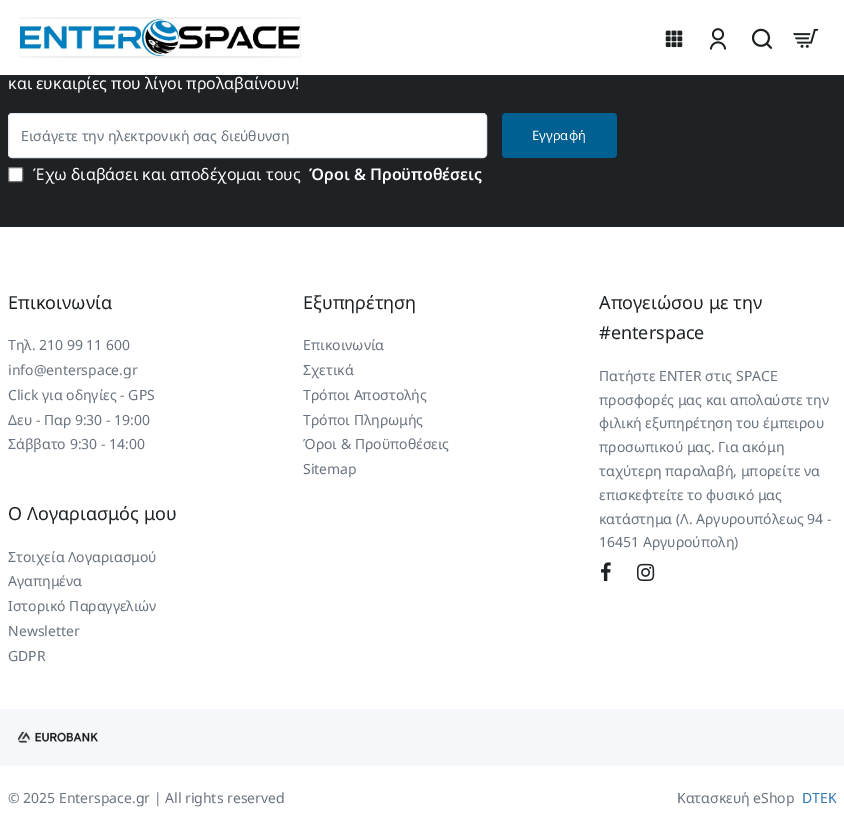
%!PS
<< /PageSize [844 830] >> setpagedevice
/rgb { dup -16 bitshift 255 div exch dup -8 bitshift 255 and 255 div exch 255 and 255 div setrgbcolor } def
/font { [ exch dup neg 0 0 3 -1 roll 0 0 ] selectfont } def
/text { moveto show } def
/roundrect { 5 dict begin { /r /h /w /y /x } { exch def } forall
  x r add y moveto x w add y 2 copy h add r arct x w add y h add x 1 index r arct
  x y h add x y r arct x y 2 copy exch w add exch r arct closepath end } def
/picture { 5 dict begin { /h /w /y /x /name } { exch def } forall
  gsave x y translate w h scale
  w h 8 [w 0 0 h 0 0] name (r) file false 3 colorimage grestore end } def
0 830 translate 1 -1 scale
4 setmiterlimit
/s1 { /NotoSans-Regular 16 font 16#FFFFFF rgb } def
/s2 { /NotoSans-Regular 14 font 16#6A7480 rgb } def
/s3 { /NotoSans-Regular 13 font 16#FFFFFF rgb } def
/s4 { /NotoSans-SemiBold 16 font 16#FFFFFF rgb } def
/s5 { /NotoSans-Regular 18 font 16#1E2225 rgb } def
/s6 { /NotoSans-Regular 14 font 16#337AB7 rgb } def
16#FFFFFF rgb
0 0 844 830 rectfill
(pic1.raw) 19 17 282 41 picture
(pic2.raw) 665 30 18 18 picture
(pic3.raw) 709 28 18 22 picture
(pic4.raw) 751 28 22 21 picture
(pic5.raw) 793 28 26 20 picture
16#1E2225 rgb
0 75 844 152 rectfill
s1
(και ευκαιρίες που λίγοι προλαβαίνουν!) 8 89 text
8.5 113.5 478 44 3.5 roundrect gsave fill grestore
16#E4E9F0 rgb
stroke
s2
(Εισάγετε την ηλεκτρονική σας διεύθυνση) 21 141 text
16#006091 rgb
502 113 115 45 4 roundrect fill
s3
(Εγγραφή) 532 140 text
8.5 167.5 14 14 1.5 roundrect gsave fill grestore
16#767676 rgb
stroke
s1
(Έχω διαβάσει και αποδέχομαι τους) 33 180 text
s4
(Όροι & Προϋποθέσεις) 309 180 text
s5
(Επικοινωνία) 8 309 text
s2
(Τηλ. 210 99 11 600) 8 350 text
(info@enterspace.gr) 8 375 text
(Click για οδηγίες - GPS) 8 400 text
(Δευ - Παρ 9:30 - 19:00) 8 425 text
(Σάββατο 9:30 - 14:00) 8 449 text
s5
(Εξυπηρέτηση) 303 309 text
s2
(Επικοινωνία) 303 350 text
(Σχετικά) 303 375 text
(Τρόποι Αποστολής) 303 400 text
(Τρόποι Πληρωμής) 303 425 text
(Όροι & Προϋποθέσεις) 303 449 text
(Sitemap) 303 474 text
s5
(Ο Λογαριασμός μου) 8 520 text
s2
(Στοιχεία Λογαριασμού) 8 562 text
(Αγαπημένα) 8 586 text
(Ιστορικό Παραγγελιών) 8 611 text
(Newsletter) 8 636 text
(GDPR) 8 661 text
s5
(Απογειώσου με την) 599 309 text
(#enterspace) 599 339 text
s2
(Πατήστε ENTER στις SPACE) 599 381 text
(προσφορές μας και απολαύστε την) 599 405 text
(φιλική εξυπηρέτηση του έμπειρου) 599 428 text
(προσωπικού μας. Για ακόμη) 599 452 text
(ταχύτερη παραλαβή, μπορείτε να) 599 476 text
(επισκεφτείτε το φυσικό μας) 599 500 text
(κατάστημα \(Λ. Αργυρουπόλεως 94 -) 599 524 text
(16451 Αργυρούπολη\)) 599 547 text
(pic6.raw) 601 562 10 19 picture
(pic7.raw) 637 563 18 18 picture
16#F5F7FA rgb
0 709 844 57 rectfill
(pic8.raw) 18 731 80 12 picture
s2
(© 2025 Enterspace.gr | All rights reserved) 8 803 text
(Κατασκευή eShop) 677 803 text
s6
(DTEK) 802 803 text
showpage
